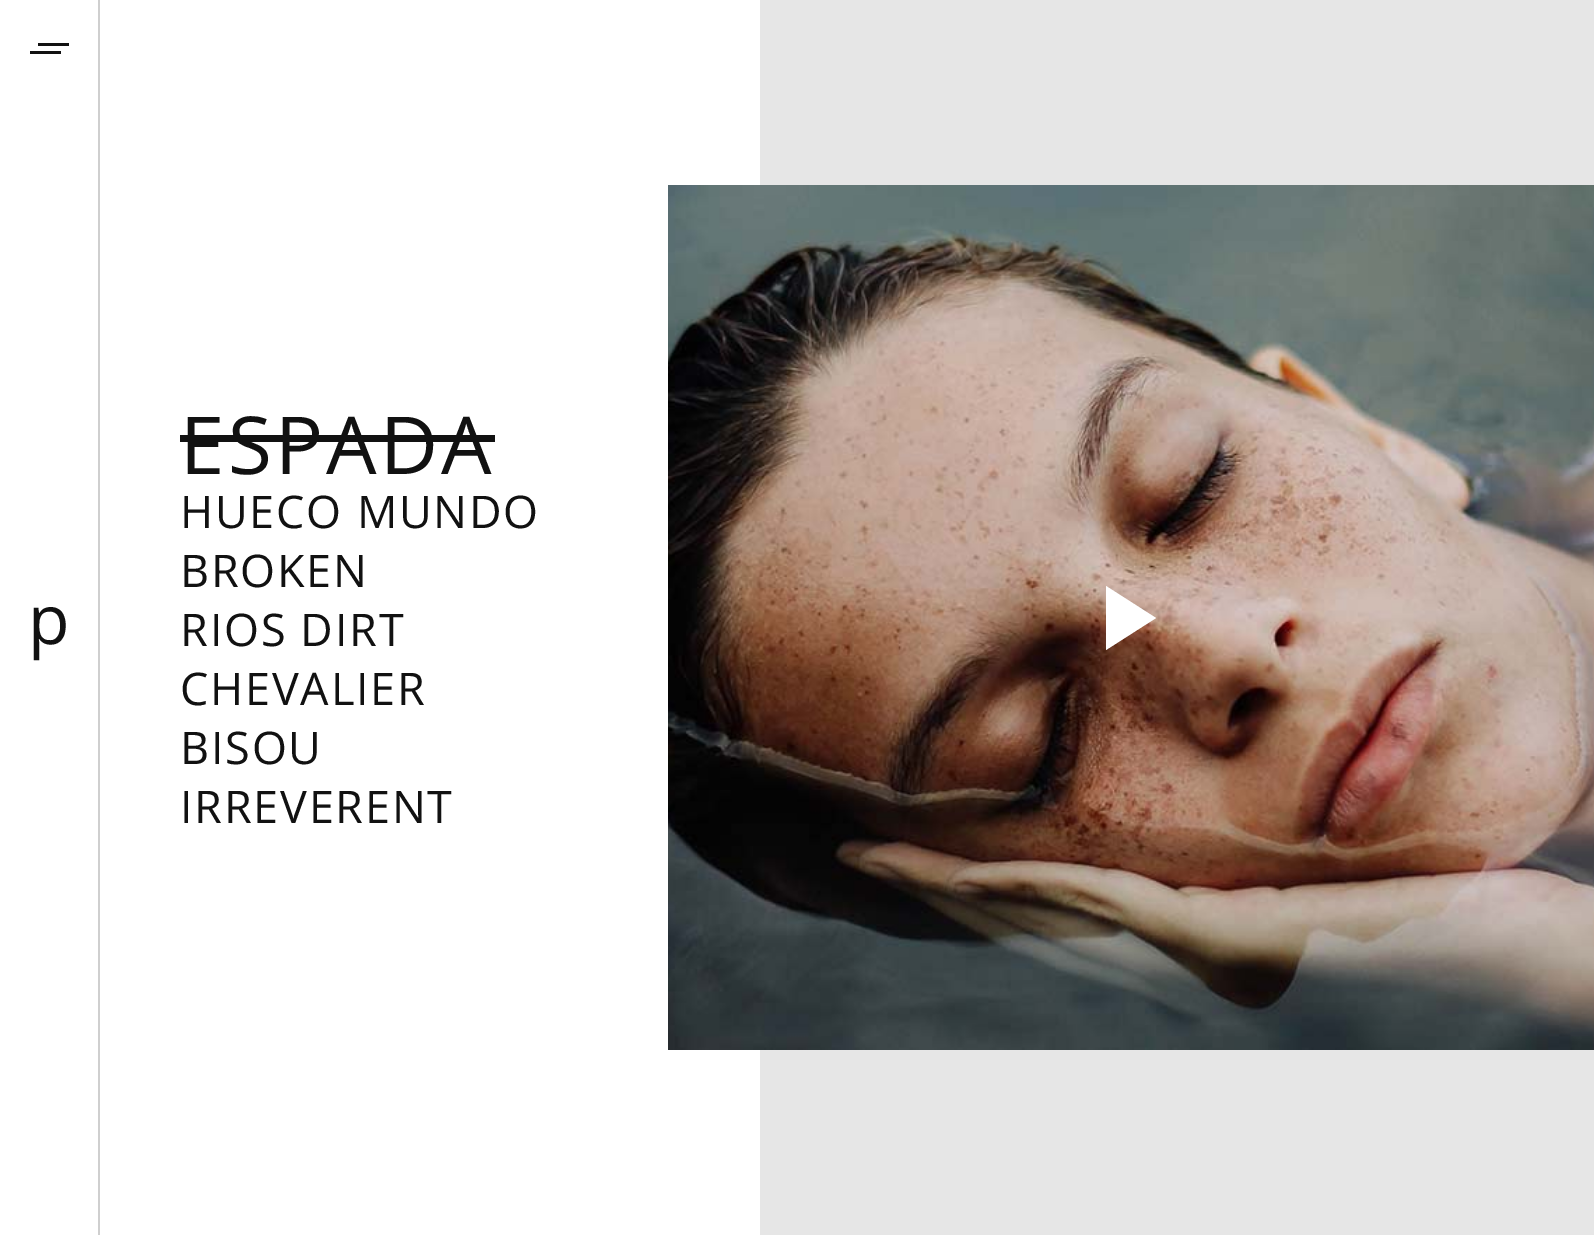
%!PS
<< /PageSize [1594 1235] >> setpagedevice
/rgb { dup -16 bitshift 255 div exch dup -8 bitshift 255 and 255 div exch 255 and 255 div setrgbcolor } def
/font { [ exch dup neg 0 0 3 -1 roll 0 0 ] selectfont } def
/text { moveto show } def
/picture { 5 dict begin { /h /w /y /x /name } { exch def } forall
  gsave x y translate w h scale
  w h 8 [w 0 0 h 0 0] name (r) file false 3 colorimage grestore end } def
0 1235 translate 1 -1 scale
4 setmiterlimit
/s1 { /OpenSans-Regular 68 font 16#111111 rgb } def
16#FFFFFF rgb
0 0 1594 1235 rectfill
16#CFCFCF rgb
98 0 2 1235 rectfill
16#111111 rgb
38 43 31 3 rectfill
30 51 31 3 rectfill
s1
(p) 28 644 text
/OpenSans-Regular 80 font
180 474 moveto 3.25 0 (ESPADA) ashow
180 435 315 7 rectfill
/OpenSans-Regular 45 font
180 528 moveto 1.75 0 (HUECO MUNDO) ashow
180 587 moveto 1.75 0 (BROKEN) ashow
180 646 moveto 1.75 0 (RIOS DIRT) ashow
180 705 moveto 1.75 0 (CHEVALIER) ashow
180 764 moveto 1.75 0 (BISOU) ashow
180 823 moveto 1.75 0 (IRREVERENT) ashow
16#E6E6E6 rgb
760 0 834 1235 rectfill
(pic1.raw) 668 185 926 865 picture
16#FFFFFF rgb
1106 586 moveto 1156 618 lineto 1106 650 lineto closepath fill
showpage
